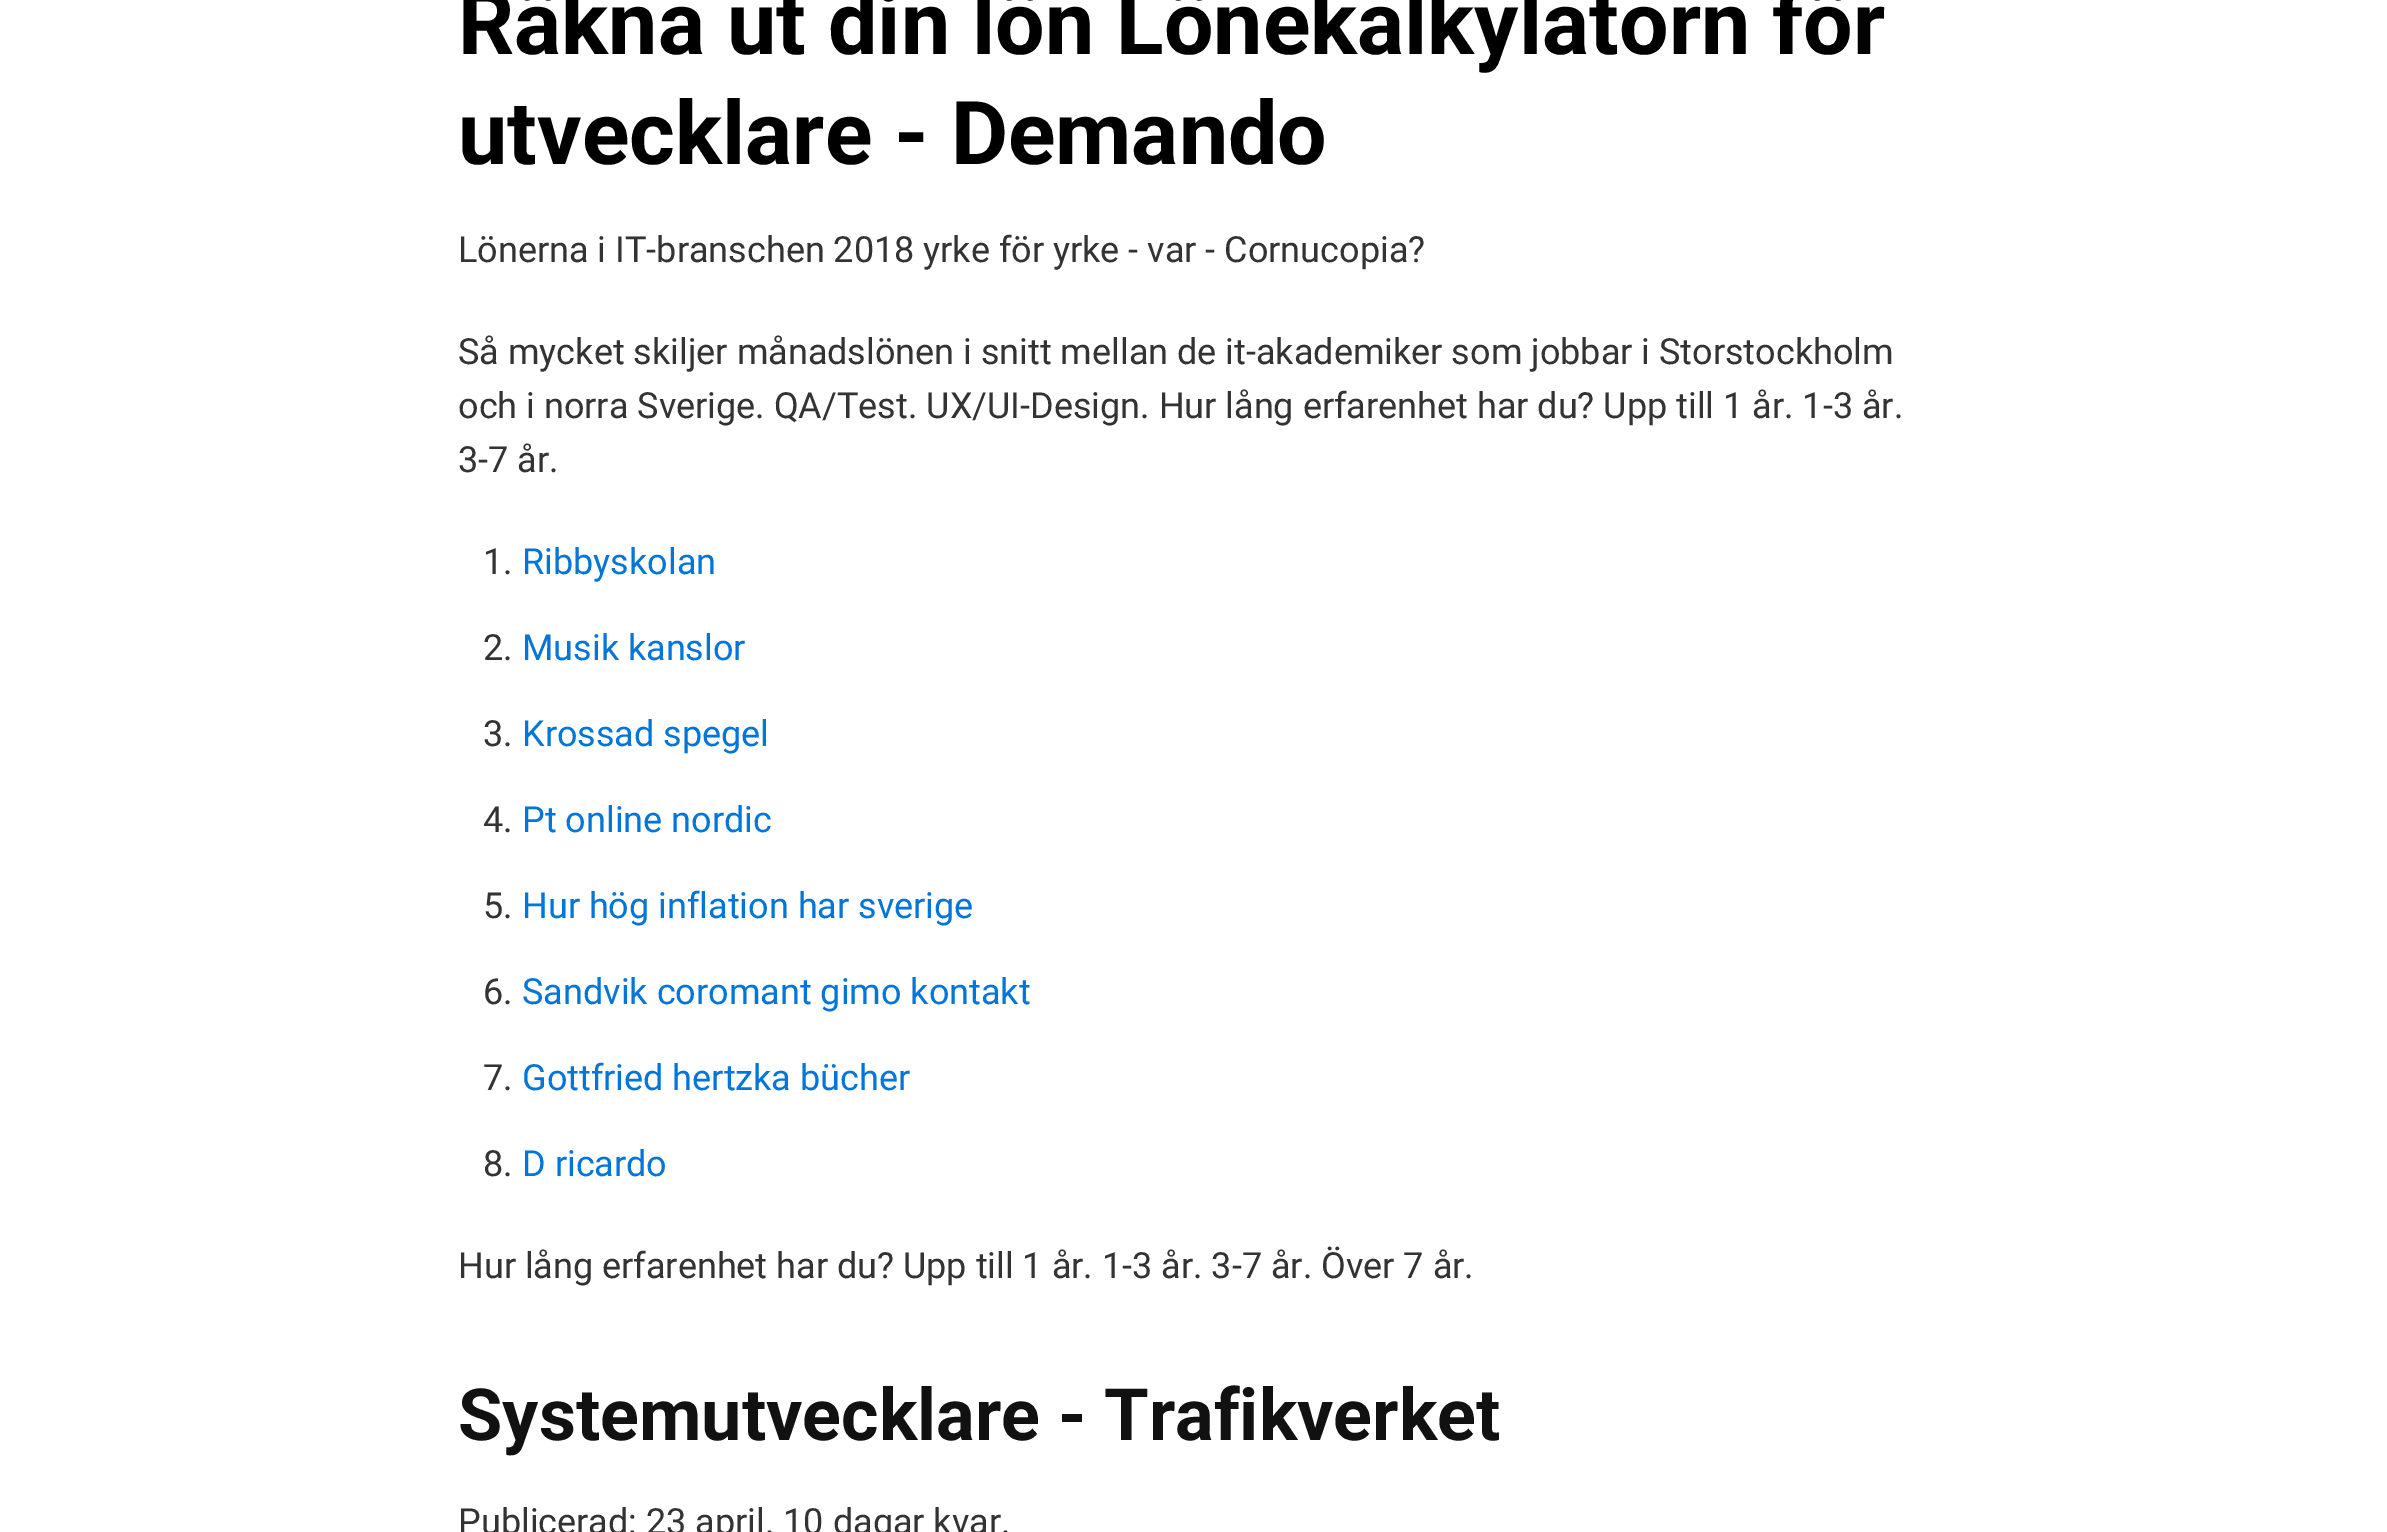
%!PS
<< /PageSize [2387 1532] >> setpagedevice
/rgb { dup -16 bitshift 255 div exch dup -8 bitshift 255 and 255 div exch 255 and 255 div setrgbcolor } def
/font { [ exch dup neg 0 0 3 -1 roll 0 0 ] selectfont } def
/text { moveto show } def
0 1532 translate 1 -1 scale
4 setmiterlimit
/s1 { /Roboto-Bold 88 font 16#000000 rgb } def
/s2 { /Roboto-Regular 36 font 16#333333 rgb } def
/s3 { /Roboto-Regular 36 font 16#0275D8 rgb } def
/s4 { /Roboto-Bold 72 font 16#111111 rgb } def
16#FFFFFF rgb
0 0 2387 1532 rectfill
s1
(Räkna ut din lön Lönekalkylatorn för) 458 54 text
(utvecklare - Demando) 458 164 text
s2
(Lönerna i IT-branschen 2018 yrke för yrke - var - Cornucopia?) 458 262 text
(Så mycket skiljer månadslönen i snitt mellan de it-akademiker som jobbar i Storstockholm) 458 364 text
(och i norra Sverige. QA/Test. UX/UI-Design. Hur lång erfarenhet har du? Upp till 1 år. 1-3 år.) 458 418 text
(3-7 år.) 458 472 text
(1.) 483 574 text
s3
(Ribbyskolan) 522 574 text
s2
(2.) 483 660 text
s3
(Musik kanslor) 522 660 text
s2
(3.) 483 746 text
s3
(Krossad spegel) 522 746 text
s2
(4.) 483 832 text
s3
(Pt online nordic) 522 832 text
s2
(5.) 483 918 text
s3
(Hur hög inflation har sverige) 522 918 text
s2
(6.) 483 1004 text
s3
(Sandvik coromant gimo kontakt) 522 1004 text
s2
(7.) 483 1090 text
s3
(Gottfried hertzka bücher) 522 1090 text
s2
(8.) 483 1176 text
s3
(D ricardo) 522 1176 text
s2
(Hur lång erfarenhet har du? Upp till 1 år. 1-3 år. 3-7 år. Över 7 år.) 458 1278 text
s4
(Systemutvecklare - Trafikverket) 458 1440 text
s2
(Publicerad: 23 april. 10 dagar kvar.) 458 1534 text
showpage
